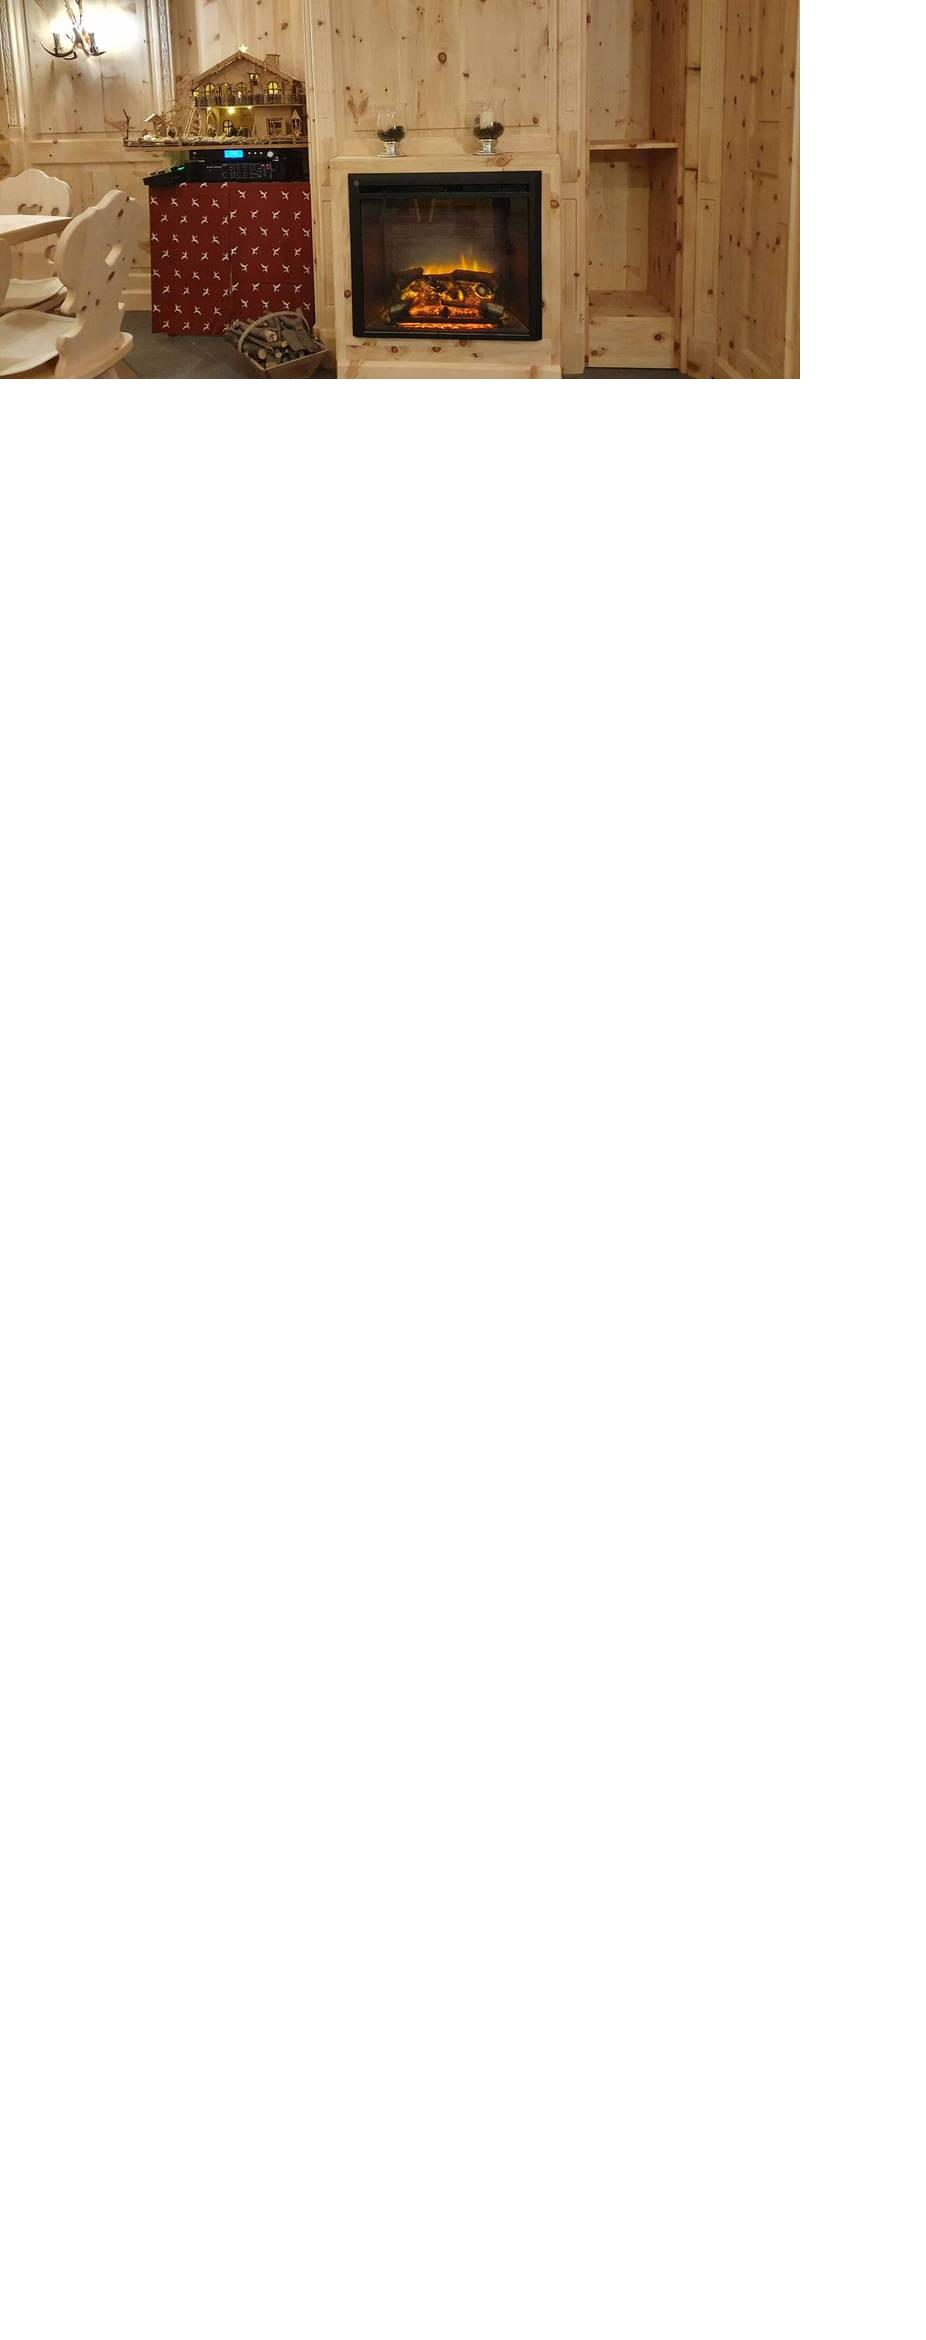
%!PS
<< /PageSize [926 2340] >> setpagedevice
/rgb { dup -16 bitshift 255 div exch dup -8 bitshift 255 and 255 div exch 255 and 255 div setrgbcolor } def
/picture { 5 dict begin { /h /w /y /x /name } { exch def } forall
  gsave x y translate w h scale
  w h 8 [w 0 0 h 0 0] name (r) file false 3 colorimage grestore end } def
0 2340 translate 1 -1 scale
4 setmiterlimit
16#FFFFFF rgb
0 0 926 2340 rectfill
(pic1.raw) 0 0 800 379 picture
showpage
